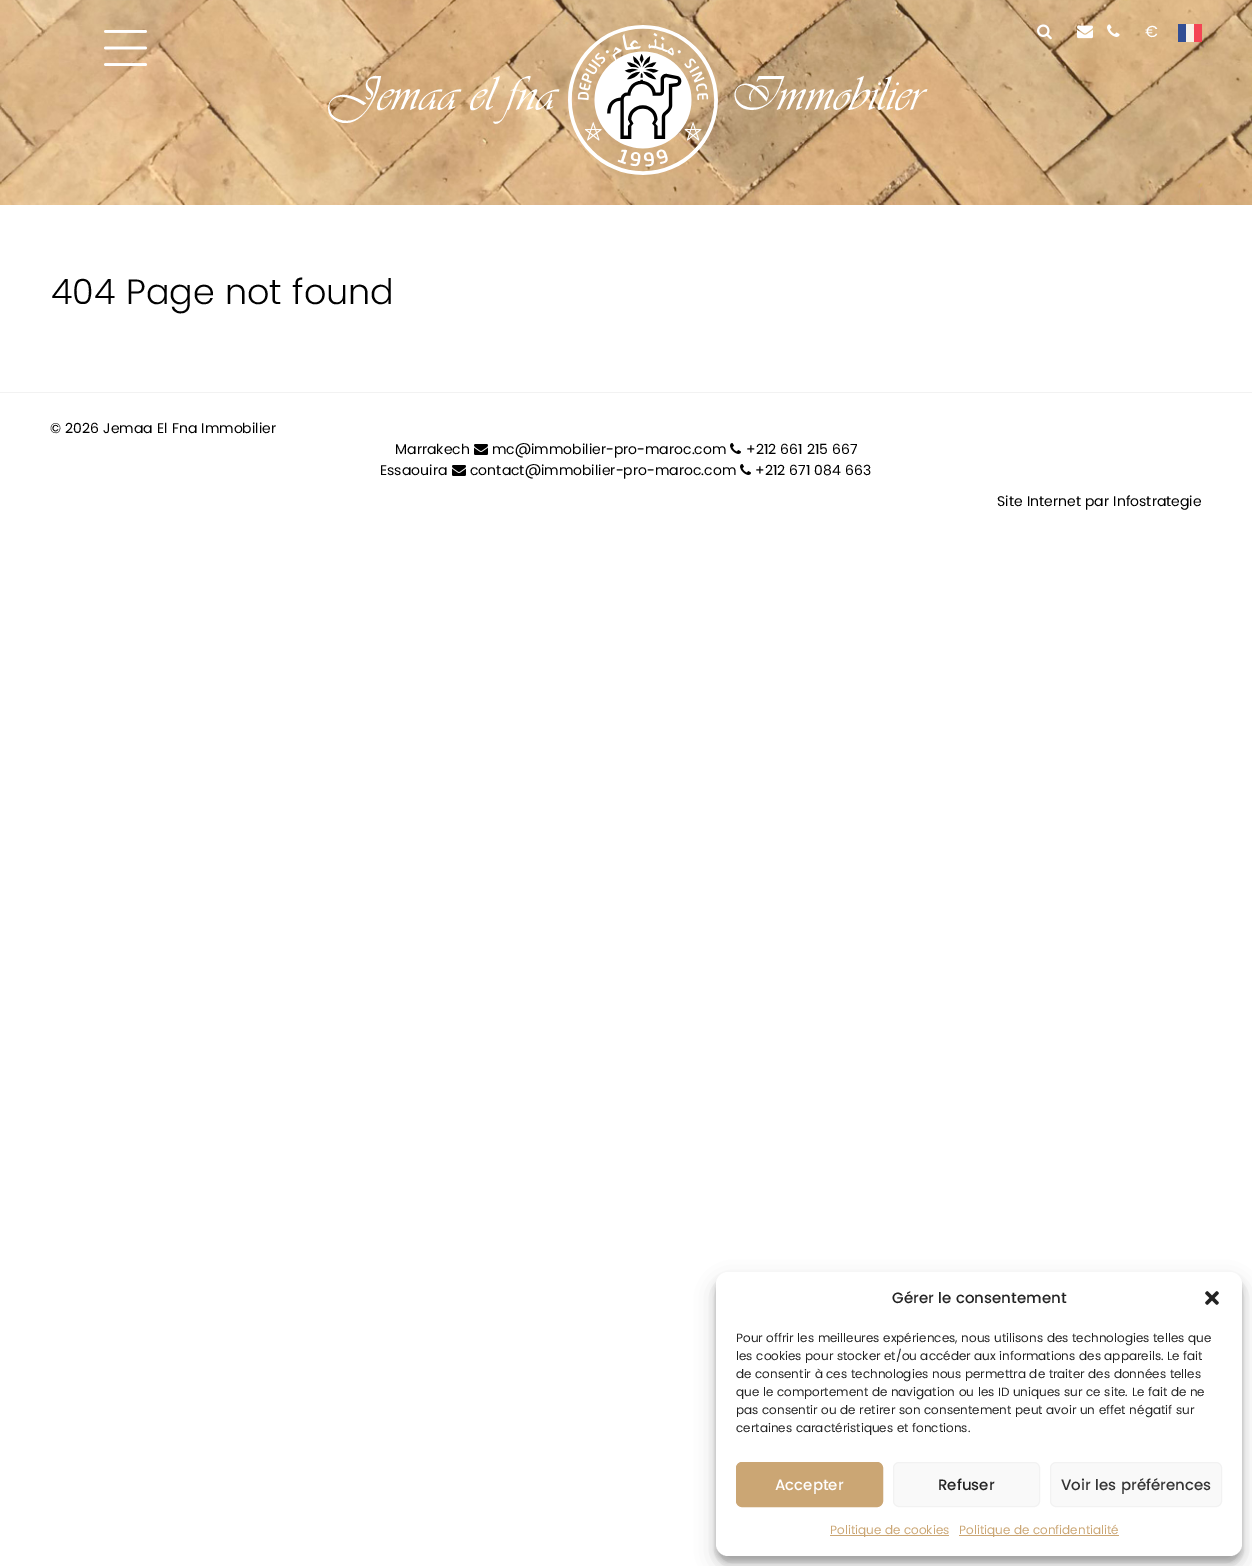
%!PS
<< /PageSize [1252 1566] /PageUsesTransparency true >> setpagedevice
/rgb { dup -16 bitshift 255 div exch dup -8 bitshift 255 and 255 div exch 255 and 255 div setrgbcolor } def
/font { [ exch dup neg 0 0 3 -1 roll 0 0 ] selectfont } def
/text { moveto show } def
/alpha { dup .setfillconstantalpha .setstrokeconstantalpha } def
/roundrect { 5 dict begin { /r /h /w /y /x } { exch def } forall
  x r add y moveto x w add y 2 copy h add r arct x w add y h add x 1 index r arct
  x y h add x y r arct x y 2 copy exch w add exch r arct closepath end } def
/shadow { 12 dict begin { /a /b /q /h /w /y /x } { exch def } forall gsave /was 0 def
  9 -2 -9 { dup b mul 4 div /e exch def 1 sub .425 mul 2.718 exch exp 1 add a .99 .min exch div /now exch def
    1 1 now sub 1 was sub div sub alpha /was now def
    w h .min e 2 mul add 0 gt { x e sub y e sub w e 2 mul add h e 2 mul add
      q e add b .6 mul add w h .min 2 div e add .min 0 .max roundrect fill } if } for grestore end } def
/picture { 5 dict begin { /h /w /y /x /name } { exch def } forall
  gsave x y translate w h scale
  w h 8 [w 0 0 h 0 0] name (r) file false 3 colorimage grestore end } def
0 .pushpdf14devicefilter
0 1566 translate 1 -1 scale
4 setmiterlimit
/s1 { /Poppins-Regular 16 font 16#FFFFFF rgb } def
/s2 { /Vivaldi-Italic 51 font 16#FFFFFF rgb } def
/s3 { /Poppins-Light 35 font 16#000000 rgb } def
/s4 { /Poppins-Regular 14 font 16#000000 rgb } def
/s5 { /Poppins-Medium 15 font 16#222222 rgb } def
/s6 { /Poppins-Regular 12 font 16#222222 rgb } def
/s7 { /Poppins-Medium 15 font 16#FFFFFF rgb } def
/s8 { /Poppins-Medium 15 font 16#333333 rgb } def
/s9 { /Poppins-Regular 12 font 16#CBA674 rgb } def
16#FFFFFF rgb
0 0 1252 1566 rectfill
(pic1.raw) 0 0 1252 205 picture
(pic2.raw) 104 30 43 36 picture
(pic3.raw) 1037 24 15 16 picture
(pic4.raw) 1077 25 16 14 picture
(pic5.raw) 1107 24 13 13 picture
s1
(€) 1145 37 text
16#324E94 rgb
1178 24 8 18 rectfill
0.8 alpha
16#FFFFFF rgb
1186 24 16 18 rectfill
16#F31830 rgb
1194 24 8 18 rectfill
1 alpha
s2
(Jemaa el fna) 329 110 text
(pic6.raw) 568 25 150 150 picture
(Immobilier) 730 110 text
s3
(404 Page not found) 51 304 text
16#F2F2F2 rgb
0 392 1252 1 rectfill
s4
(© 2026 Jemaa El Fna Immobilier) 50 433 text
(Marrakech) 395 454 text
(pic7.raw) 474 444 14 11 picture
(mc@immobilier-pro-maroc.com) 492 454 text
(pic8.raw) 730 443 11 11 picture
(+212 661 215 667) 746 454 text
(Essaouira) 380 475 text
(pic7.raw) 452 465 14 11 picture
(contact@immobilier-pro-maroc.com) 470 475 text
(pic8.raw) 740 464 11 11 picture
(+212 671 084 663) 755 475 text
(Site Internet par Infostrategie) 997 506 text
716 1278 526 284 12 3 0.23 shadow
716 1282 526 284 12 10 0.19 shadow
16#FFFFFF rgb
716 1272 526 284 12 roundrect fill
s5
(Gérer le consentement) 892 1303 text
(pic9.raw) 1205 1291 14 14 picture
s6
(Pour offrir les meilleures expériences, nous utilisons des technologies telles que) 736 1342 text
(les cookies pour stocker et/ou accéder aux informations des appareils. Le fait) 736 1360 text
(de consentir à ces technologies nous permettra de traiter des données telles) 736 1378 text
(que le comportement de navigation ou les ID uniques sur ce site. Le fait de ne) 736 1396 text
(pas consentir ou de retirer son consentement peut avoir un effet négatif sur) 736 1414 text
(certaines caractéristiques et fonctions.) 736 1432 text
16#CBA674 rgb
736.5 1462.5 146 44 5.5 roundrect gsave fill grestore
stroke
s7
(Accepter) 775 1490 text
16#F9F9F9 rgb
893.5 1462.5 146 44 5.5 roundrect gsave fill grestore
16#F2F2F2 rgb
stroke
s5
(Refuser) 938 1490 text
16#F9F9F9 rgb
1050.5 1462.5 171 44 5.5 roundrect gsave fill grestore
16#F2F2F2 rgb
stroke
s8
(Voir les préférences) 1061 1490 text
16#CBA674 rgb
830 1535 119 1 rectfill
s9
(Politique de cookies) 830 1534 text
959 1535 160 1 rectfill
(Politique de confidentialité) 959 1534 text
.poppdf14devicefilter showpage
